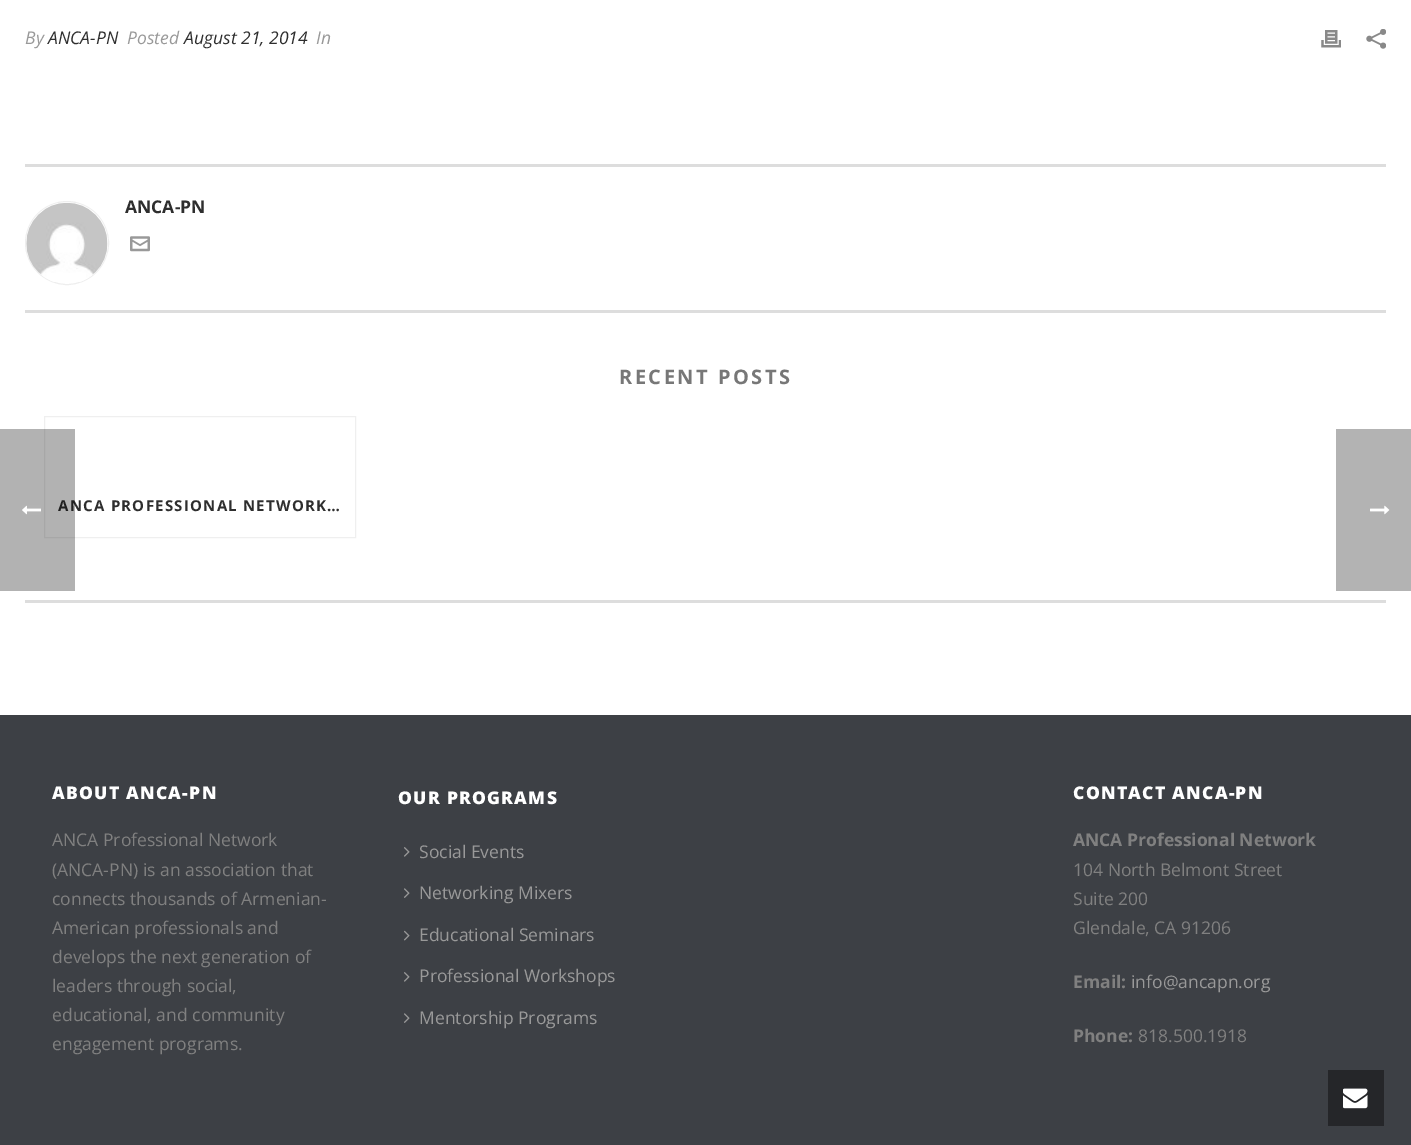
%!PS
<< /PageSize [1411 1145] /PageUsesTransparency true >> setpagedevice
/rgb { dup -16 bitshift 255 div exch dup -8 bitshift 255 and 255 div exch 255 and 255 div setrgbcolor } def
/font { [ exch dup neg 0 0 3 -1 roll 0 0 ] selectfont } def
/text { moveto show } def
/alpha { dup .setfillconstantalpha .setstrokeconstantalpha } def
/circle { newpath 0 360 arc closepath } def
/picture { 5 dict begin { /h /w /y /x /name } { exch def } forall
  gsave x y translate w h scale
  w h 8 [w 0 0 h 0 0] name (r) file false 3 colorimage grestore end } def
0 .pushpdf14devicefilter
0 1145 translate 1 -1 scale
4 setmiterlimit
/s1 { /OpenSans-Italic 17.5 font 16#999999 rgb } def
/s2 { /OpenSans-Italic 17.5 font 16#2E2E2E rgb } def
/s3 { /OpenSans-Bold 17.5 font 16#2E2E2E rgb } def
/s4 { /OpenSans-Regular 17.5 font 16#808080 rgb } def
/s5 { /OpenSans-Regular 17.5 font 16#999999 rgb } def
/s6 { /OpenSans-Bold 17.5 font 16#808080 rgb } def
16#FFFFFF rgb
0 0 1411 1145 rectfill
s1
(By) 25 44 text
s2
(ANCA-PN) 48 44 text
s1
(Posted) 127 44 text
s2
(August 21, 2014) 184 44 text
s1
(In) 316 44 text
(pic1.raw) 1321 30 20 18 picture
(pic2.raw) 1366 29 20 20 picture
16#DDDDDD rgb
25 164 1361 3 rectfill
25 310 1361 3 rectfill
16#EEEEEE rgb
67 243 41.5 circle stroke
(pic3.raw) 26 203 82 79 picture
s3
(ANCA-PN) 125 213 text
(pic4.raw) 130 236 20 16 picture
16#DDDDDD rgb
25 600 1361 3 rectfill
/OpenSans-Bold 20 font
16#777777 rgb
619 384 moveto 2.5 0 (RECENT POSTS) ashow
16#EFEFEF rgb
44.5 416.5 311 121 rectstroke
/OpenSans-Bold 15 font
16#2E2E2E rgb
58 511 moveto 1.25 0 (ANCA PROFESSIONAL NETWORK…) ashow
16#3D4045 rgb
0 715 1411 430 rectfill
/OpenSans-ExtraBold 17.5 font
16#FFFFFF rgb
52 799 moveto 1.25 0 (ABOUT ANCA-PN) ashow
s4
(ANCA Professional Network) 52 846 text
(\(ANCA-PN\) is an association that) 52 876 text
(connects thousands of Armenian-) 52 905 text
(American professionals and) 52 934 text
(develops the next generation of) 52 963 text
(leaders through social,) 52 992 text
(educational, and community) 52 1021 text
(engagement programs.) 52 1050 text
/OpenSans-ExtraBold 17.5 font
16#FFFFFF rgb
398 804 moveto 1.25 0 (OUR PROGRAMS) ashow
(pic5.raw) 404 847 6 10 picture
s5
(Social Events) 419 858 text
(pic6.raw) 404 888 6 10 picture
(Networking Mixers) 419 899 text
(pic7.raw) 404 930 6 11 picture
(Educational Seminars) 419 941 text
(pic5.raw) 404 972 6 10 picture
(Professional Workshops) 419 982 text
(pic6.raw) 404 1013 6 10 picture
(Mentorship Programs) 419 1024 text
/OpenSans-ExtraBold 17.5 font
16#FFFFFF rgb
1073 799 moveto 1.25 0 (CONTACT ANCA-PN) ashow
s6
(ANCA Professional Network) 1073 846 text
s4
(104 North Belmont Street) 1073 876 text
(Suite 200) 1073 905 text
(Glendale, CA 91206) 1073 934 text
s6
(Email:) 1073 988 text
s5
(info@ancapn.org) 1131 988 text
s6
(Phone:) 1073 1042 text
s4
(818.500.1918) 1138 1042 text
0.3 alpha
16#000000 rgb
0 429 75 162 rectfill
1 alpha
(pic8.raw) 22 505 19 10 picture
16#B3B3B3 rgb
1336 429 75 162 rectfill
(pic9.raw) 1370 505 20 10 picture
16#252629 rgb
1328 1070 56 56 rectfill
(pic10.raw) 1343 1088 25 21 picture
.poppdf14devicefilter showpage
